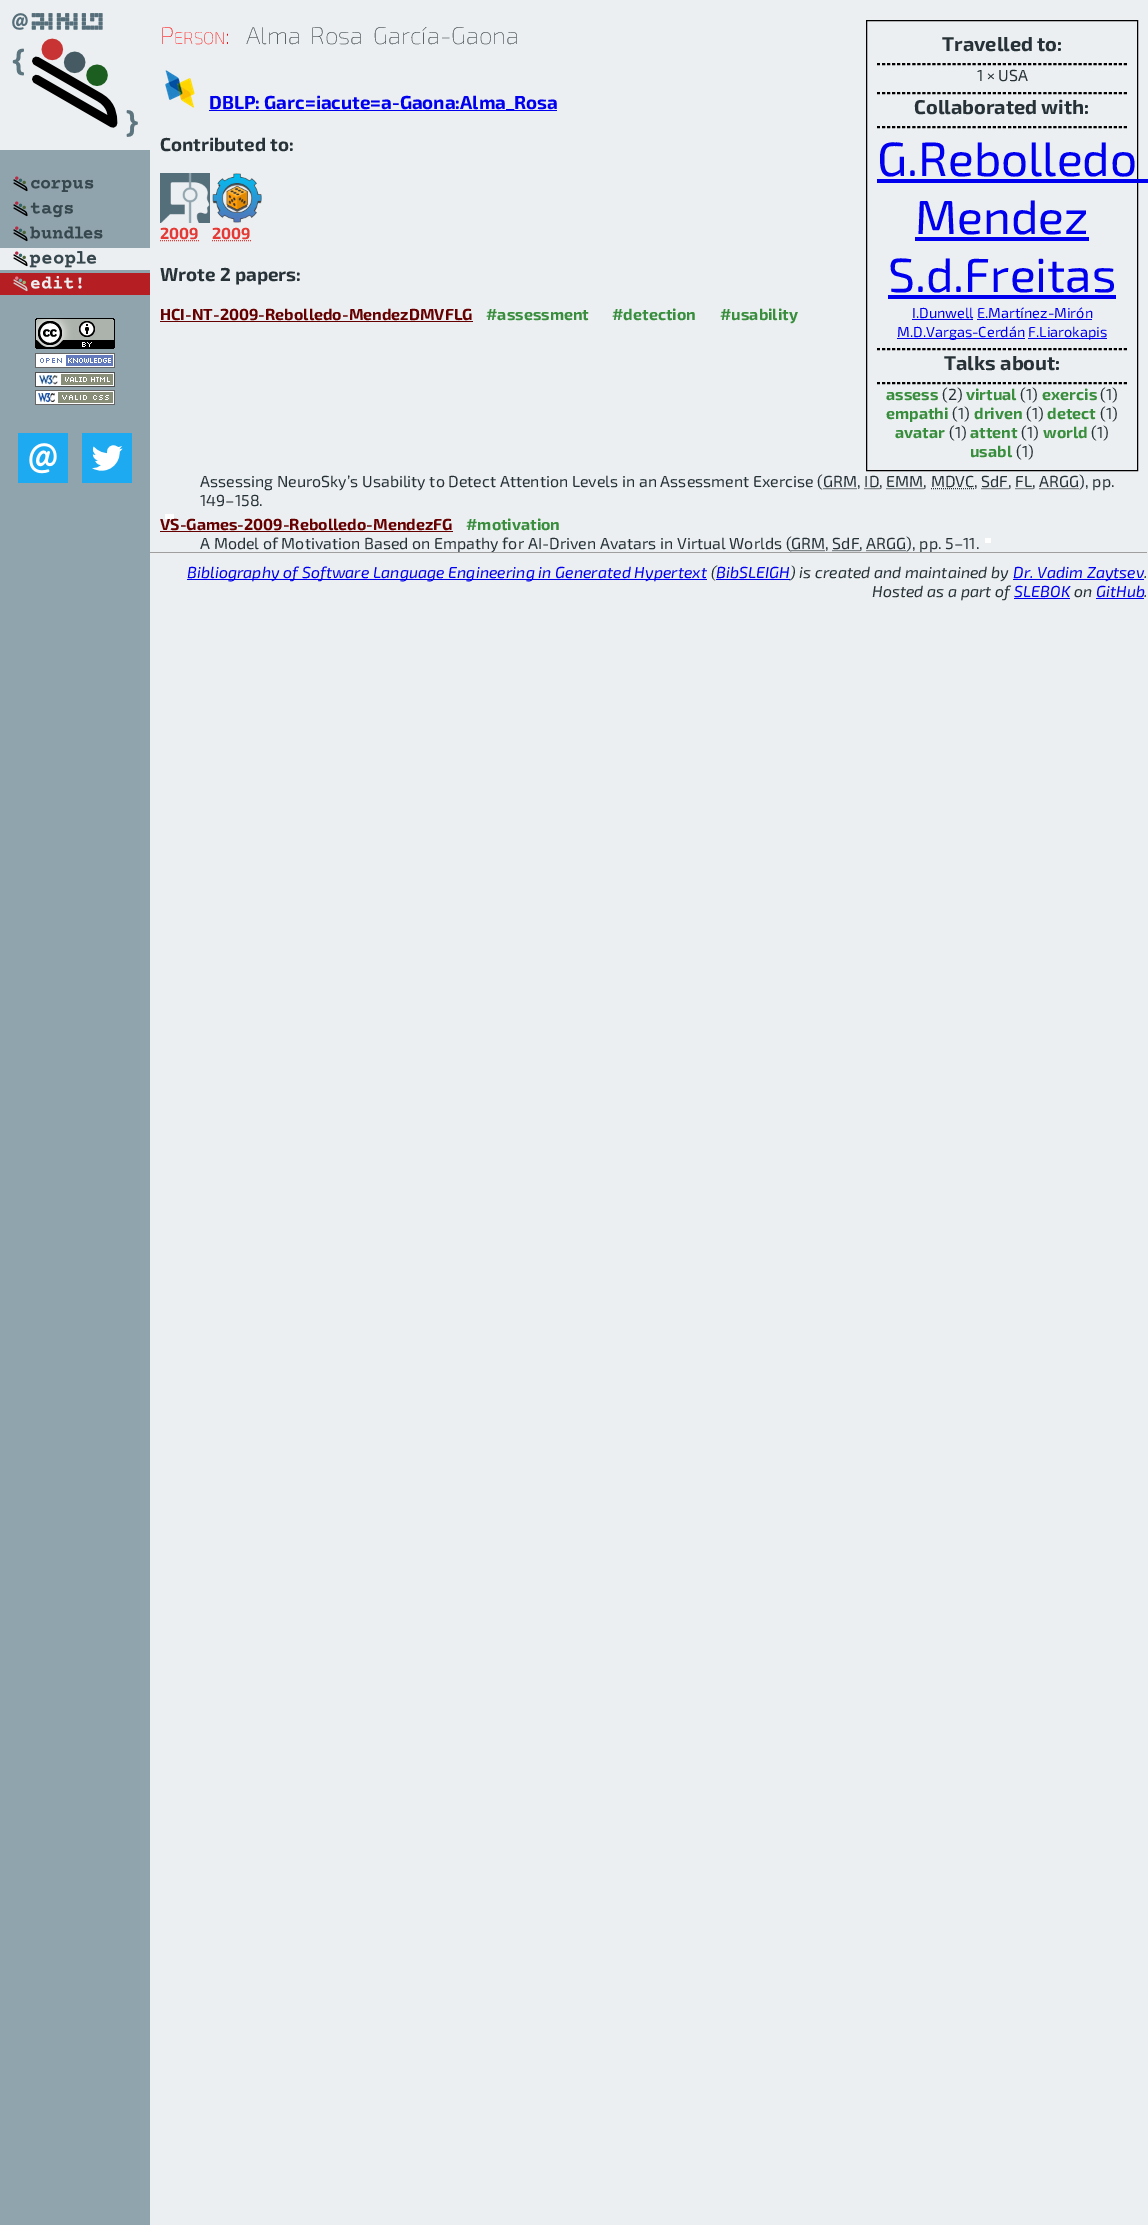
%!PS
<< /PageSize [1148 2225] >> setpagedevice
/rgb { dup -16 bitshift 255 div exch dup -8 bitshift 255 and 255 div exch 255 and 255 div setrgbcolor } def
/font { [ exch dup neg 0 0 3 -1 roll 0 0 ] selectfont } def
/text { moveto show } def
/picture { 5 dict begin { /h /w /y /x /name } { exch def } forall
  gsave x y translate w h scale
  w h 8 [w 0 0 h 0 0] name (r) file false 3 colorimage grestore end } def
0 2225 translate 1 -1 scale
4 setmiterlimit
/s1 { /Exo2-Thin 24 font 16#FF0000 rgb } def
/s2 { /Exo2-Thin 17 font 16#FF0000 rgb } def
/s3 { /Exo2-Bold 20 font 16#263238 rgb } def
/s4 { /Exo2-Regular 16 font 16#263238 rgb } def
/s5 { /Exo2-Regular 48 font 16#0000EE rgb } def
/s6 { /Exo2-Regular 14.5 font 16#0000EE rgb } def
/s7 { /Exo2-Bold 16 font 16#388E3C rgb } def
/s8 { /Exo2-Bold 18.75 font 16#0000EE rgb } def
/s9 { /Exo2-Bold 18.75 font 16#263238 rgb } def
/s10 { /Exo2-Bold 16 font 16#E53935 rgb } def
/s11 { /Exo2-Bold 16 font 16#660000 rgb } def
/s12 { /Exo2-Italic 16 font 16#0000EE rgb } def
/s13 { /Exo2-Italic 16 font 16#263238 rgb } def
16#ECEFF1 rgb
0 0 1148 2225 rectfill
16#90A4AE rgb
0 150 150 2075 rectfill
(pic1.raw) 0 0 150 150 picture
(pic2.raw) 13 176 81 16 picture
(pic3.raw) 13 201 60 17 picture
(pic4.raw) 13 226 90 16 picture
(pic5.raw) 0 248 150 22 picture
(pic6.raw) 0 273 150 22 picture
(pic7.raw) 35 318 80 31 picture
(pic8.raw) 35 353 80 15 picture
(pic9.raw) 35 372 80 15 picture
(pic10.raw) 35 390 80 15 picture
(pic11.raw) 18 433 50 50 picture
(pic12.raw) 82 433 50 50 picture
s1
(P) 160 44 text
s2
(ERSON) 174 44 text
s1
(:) 225 44 text
16#263238 rgb
246 44 moveto 4 0 32 (Alma Rosa García-Gaona) widthshow
16#000000 rgb
866.5 20.5 271 450 rectstroke
s3
(Travelled to:) 942 51 text
16#000000 rgb
[3 2.04] 0 setdash
877 63.5 moveto 1127 63.5 lineto stroke
1126 63 1 2 rectfill
877 64.5 moveto 1127 64.5 lineto stroke
s4
(1 × USA) 977 81 text
16#000000 rgb
877 92.5 moveto 1127 92.5 lineto stroke
1126 92 1 2 rectfill
877 93.5 moveto 1127 93.5 lineto stroke
s3
(Collaborated with:) 914 114 text
16#000000 rgb
877 126.5 moveto 1127 126.5 lineto stroke
1126 126 1 2 rectfill
877 127.5 moveto 1127 127.5 lineto stroke
s5
(G.Rebolledo) 877 176 text
877 179 271 4 rectfill
(Mendez) 915 234 text
915 237 174 4 rectfill
(S.d.Freitas) 888 292 text
888 295 228 4 rectfill
s6
(I.Dunwell) 912 318 text
912 319 61 1 rectfill
(E.Martínez-Mirón) 977 318 text
977 319 115 1 rectfill
897 338 128 1 rectfill
(M.D.Vargas-Cerdán) 897 337 text
1028 338 79 1 rectfill
(F.Liarokapis) 1028 337 text
16#000000 rgb
877 348.5 moveto 1127 348.5 lineto stroke
1126 348 1 2 rectfill
877 349.5 moveto 1127 349.5 lineto stroke
s3
(Talks about:) 944 370 text
16#000000 rgb
877 382.5 moveto 1127 382.5 lineto stroke
1126 382 1 2 rectfill
877 383.5 moveto 1127 383.5 lineto stroke
s7
(assess) 886 400 text
s4
(\(2\)) 942 400 text
s7
(virtual) 966 400 text
s4
(\(1\)) 1020 400 text
s7
(exercis) 1042 400 text
s4
(\(1\)) 1100 400 text
s7
(empathi) 886 419 text
s4
(\(1\)) 952 419 text
s7
(driven) 974 419 text
s4
(\(1\)) 1026 419 text
s7
(detect) 1047 419 text
s4
(\(1\)) 1100 419 text
s7
(avatar) 895 438 text
s4
(\(1\)) 949 438 text
s7
(attent) 970 438 text
s4
(\(1\)) 1021 438 text
s7
(world) 1043 438 text
s4
(\(1\)) 1091 438 text
s7
(usabl) 970 457 text
s4
(\(1\)) 1016 457 text
(pic13.raw) 165 70 30 38 picture
16#0000EE rgb
209 110 348 1 rectfill
s8
(DBLP: Garc=iacute=a-Gaona:Alma_Rosa) 209 109 text
s9
(Contributed to:) 160 151 text
(pic14.raw) 160 173 50 50 picture
s10
(2009) 160 239 text
[1 1] 0 setdash
160 240.5 moveto 199 240.5 lineto stroke
(pic15.raw) 212 173 50 50 picture
(2009) 212 239 text
212 240.5 moveto 251 240.5 lineto stroke
s9
(Wrote 2 papers:) 160 281 text
s11
(HCI-NT-2009-Rebolledo-MendezDMVFLG) 160 320 text
160 321 313 1 rectfill
s7
(#assessment) 486 320 text
(#detection) 612 320 text
(#usability) 720 320 text
s4
(Assessing NeuroSky’s Usability to Detect Attention Levels in an Assessment Exercise \(GRM, ID, EMM, MDVC, SdF, FL, ARGG\), pp.) 200 487 text
823.5 488.5 moveto 857.5 488.5 lineto 864.5 488.5 moveto 879.5 488.5 lineto stroke
886.5 488.5 moveto 923.5 488.5 lineto stroke
931 488.5 moveto 974.5 488.5 lineto stroke
981.5 488.5 moveto 1008.5 488.5 lineto 1015.5 488.5 moveto 1032.5 488.5 lineto stroke
1039.5 488.5 moveto 1079.5 488.5 lineto stroke
(149–158.) 200 506 text
s11
(VS-Games-2009-Rebolledo-MendezFG) 160 530 text
16#FFFFFF rgb
165 514 9 5 rectfill
16#660000 rgb
160 531 293 1 rectfill
s7
(#motivation) 466 530 text
s4
(A Model of Motivation Based on Empathy for AI-Driven Avatars in Virtual Worlds \(GRM, SdF, ARGG\), pp. 5–11.) 200 549 text
791.5 550.5 moveto 825.5 550.5 lineto stroke
832.5 550.5 moveto 859.5 550.5 lineto stroke
866.5 550.5 moveto 906.5 550.5 lineto stroke
16#FFFFFF rgb
985 538 6 5 rectfill
16#9F9F9F rgb
150 552 998 1 rectfill
16#EEEEEE rgb
1147 552 1 2 rectfill
150 553 998 1 rectfill
16#0000EE rgb
187 579 520 1 rectfill
s12
(Bibliography of Software Language Engineering in Generated Hypertext) 187 578 text
s13
(\() 711 578 text
s12
(BibSLEIGH) 716 578 text
716 579 74 1 rectfill
s13
(\) is created and maintained by) 790 578 text
16#0000EE rgb
1013 579 131 1 rectfill
(Dr. Vadim Zaytsev) 1013 578 text
s13
(.) 1144 578 text
(Hosted as a part of) 872 597 text
16#0000EE rgb
1014 598 56 1 rectfill
(SLEBOK) 1014 597 text
s13
(on) 1074 597 text
s12
(GitHub) 1096 597 text
s13
(.) 1144 597 text
16#0000EE rgb
1096 598 48 1 rectfill
showpage
